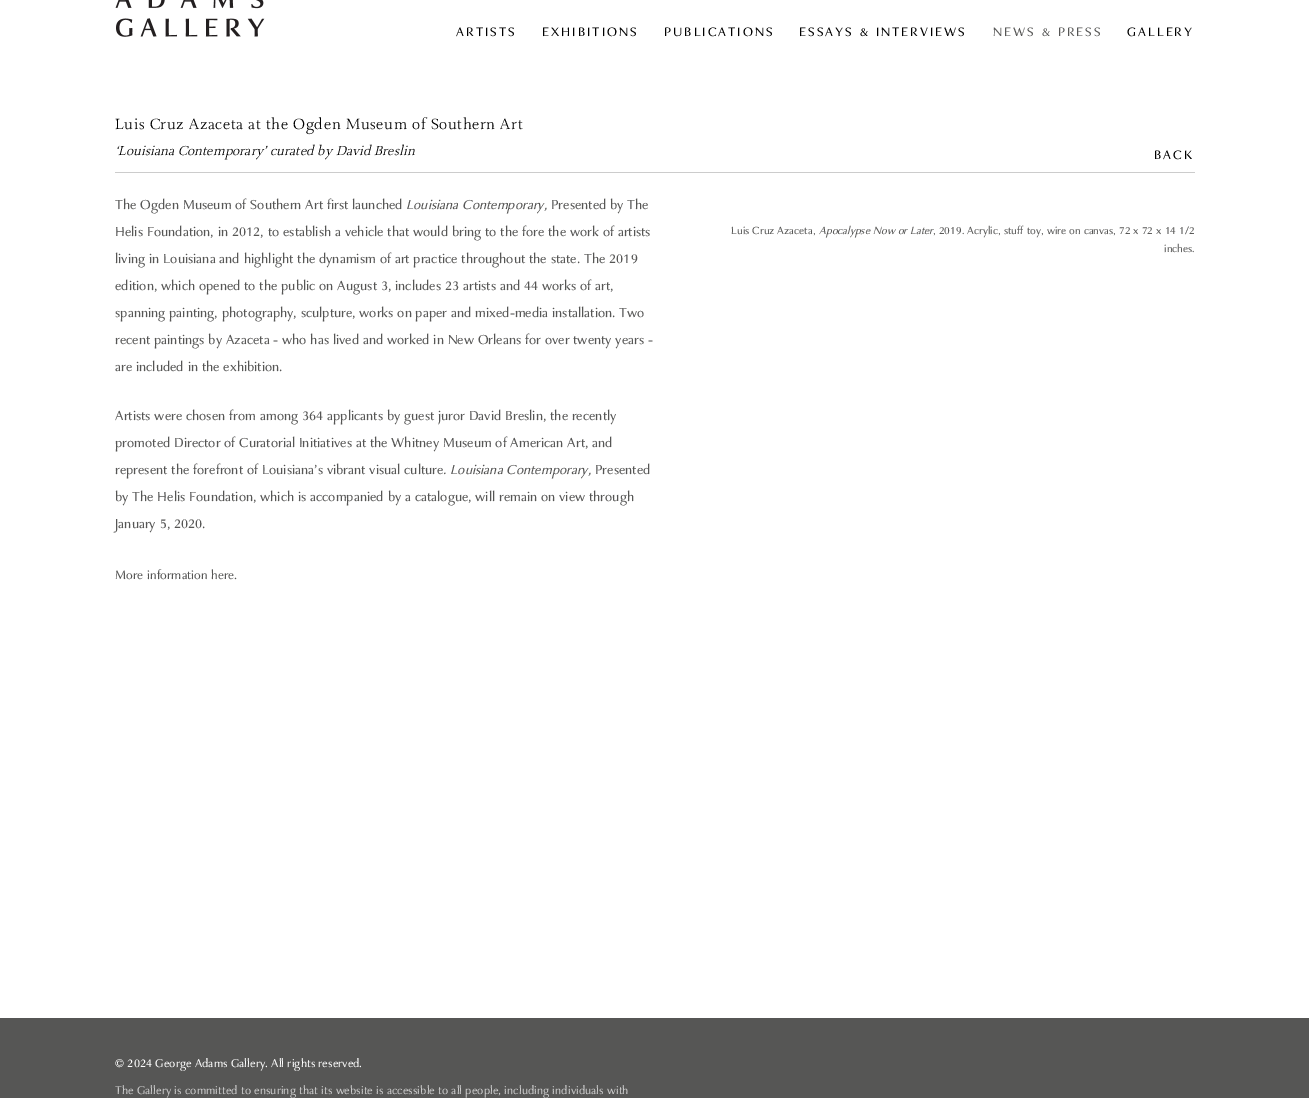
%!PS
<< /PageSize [1309 1098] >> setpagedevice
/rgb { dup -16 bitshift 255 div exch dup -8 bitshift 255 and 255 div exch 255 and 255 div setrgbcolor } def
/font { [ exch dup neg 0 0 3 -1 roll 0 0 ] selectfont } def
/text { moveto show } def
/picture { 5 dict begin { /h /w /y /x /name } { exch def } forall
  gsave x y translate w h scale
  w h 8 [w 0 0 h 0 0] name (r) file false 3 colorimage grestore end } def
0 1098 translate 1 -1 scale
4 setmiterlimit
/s1 { /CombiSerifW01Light-LightItalic 15 font 16#000000 rgb } def
/s2 { /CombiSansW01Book-Regular 15 font 16#565655 rgb } def
/s3 { /CombiSansW01Book-Italic 15 font 16#565655 rgb } def
/s4 { /CombiSansW01Book-Regular 14 font 16#565655 rgb } def
/s5 { /CombiSansW01Book-Regular 12 font 16#565655 rgb } def
/s6 { /CombiSansW01Book-Italic 12 font 16#565655 rgb } def
/s7 { /CombiSansW01Book-Regular 13 font 16#FFFFFF rgb } def
/s8 { /CombiSansW01Book-Regular 13 font 16#CBCBCB rgb } def
16#FFFFFF rgb
0 0 1309 1098 rectfill
(pic1.raw) 115 0 150 37 picture
/CombiSansW01Book-Regular 14 font
16#000000 rgb
456 36 moveto 2 0 (ARTISTS) ashow
542 36 moveto 2 0 (EXHIBITIONS) ashow
664 36 moveto 2 0 (PUBLICATIONS) ashow
799 36 moveto 2 0 (ESSAYS & INTERVIEWS) ashow
16#565655 rgb
993 36 moveto 2 0 (NEWS & PRESS) ashow
16#000000 rgb
1127 36 moveto 2 0 (GALLERY) ashow
16#CCCCCC rgb
115 172 1080 1 rectfill
/CombiSerifW01Light-Light 17 font
16#000000 rgb
115 129 moveto 0.5 0 (Luis Cruz Azaceta at the Ogden Museum of Southern Art) ashow
s1
(‘Louisiana Contemporary’ curated by David Breslin) 115 155 text
/CombiSansW01Book-Regular 14 font
1154 159 moveto 2 0 (BACK) ashow
s2
(The Ogden Museum of Southern Art first launched) 115 209 text
s3
(Louisiana Contemporary,) 406 209 text
s2
(Presented by The) 551 209 text
(Helis Foundation, in 2012, to establish a vehicle that would bring to the fore the work of artists) 115 236 text
(living in Louisiana and highlight the dynamism of art practice throughout the state. The 2019) 115 263 text
(edition, which opened to the public on August 3, includes 23 artists and 44 works of art,) 115 290 text
(spanning painting, photography, sculpture, works on paper and mixed-media installation. Two) 115 317 text
(recent paintings by Azaceta - who has lived and worked in New Orleans for over twenty years -) 115 344 text
(are included in the exhibition.) 115 371 text
(Artists were chosen from among 364 applicants by guest juror David Breslin, the recently) 115 420 text
(promoted Director of Curatorial Initiatives at the Whitney Museum of American Art, and) 115 447 text
(represent the forefront of Louisiana’s vibrant visual culture) 115 474 text
s3
(. Louisiana Contemporary,) 443 474 text
s2
(Presented) 595 474 text
(by The Helis Foundation, which is accompanied by a catalogue, will remain on view through) 115 501 text
(January 5, 2020.) 115 528 text
s4
(More information here.) 115 579 text
s5
(Luis Cruz Azaceta,) 731 234 text
s6
(Apocalypse Now or Later) 819 234 text
s5
(, 2019. Acrylic, stuff toy, wire on canvas, 72 x 72 x 14 1/2) 933 234 text
(inches.) 1164 252 text
0 1018 1309 80 rectfill
s7
(© 2024 George Adams Gallery. All rights reserved.) 115 1067 text
s8
(The Gallery is committed to ensuring that its website is accessible to all people, including individuals with) 115 1094 text
showpage
